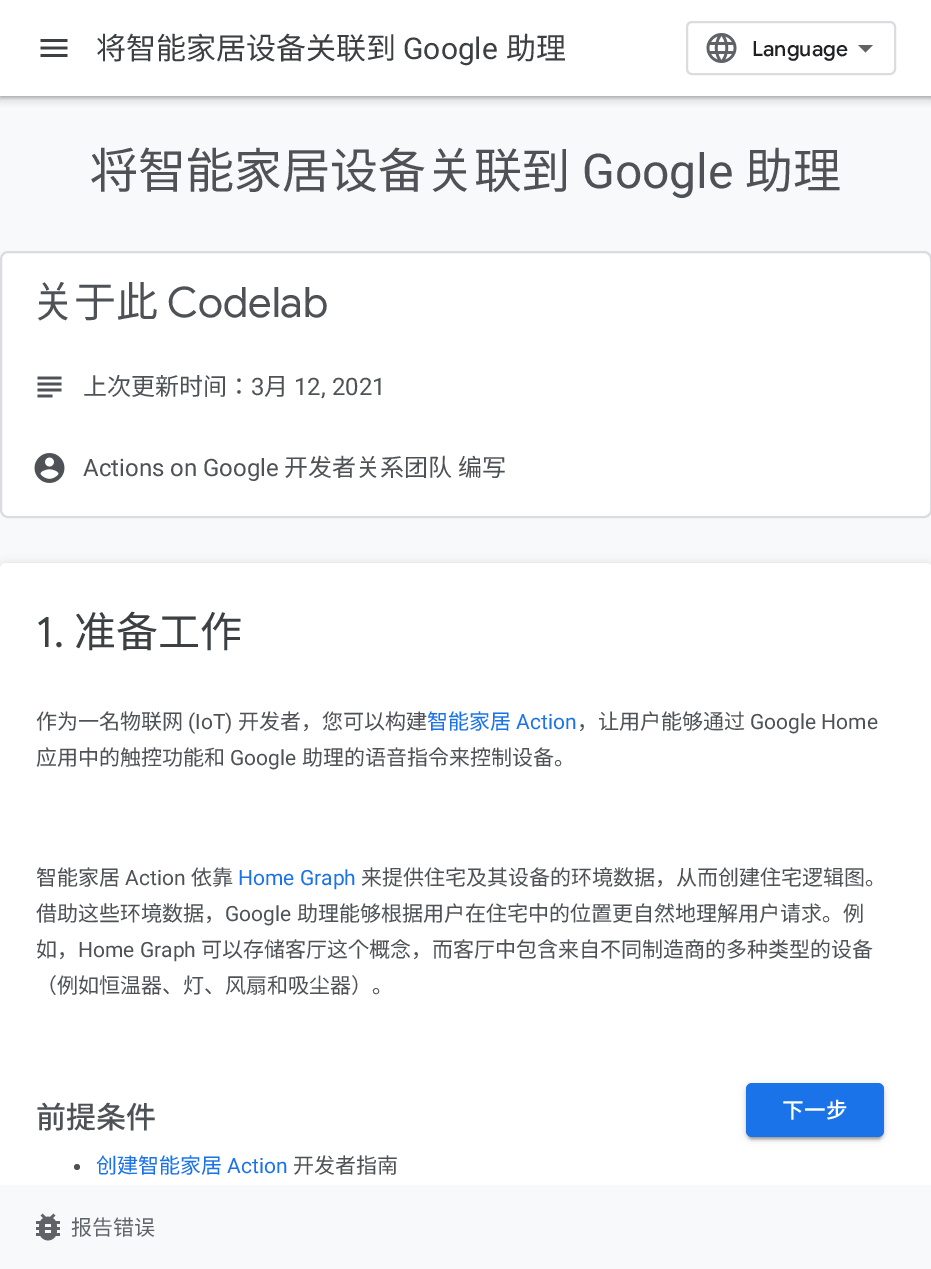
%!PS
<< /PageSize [931 1269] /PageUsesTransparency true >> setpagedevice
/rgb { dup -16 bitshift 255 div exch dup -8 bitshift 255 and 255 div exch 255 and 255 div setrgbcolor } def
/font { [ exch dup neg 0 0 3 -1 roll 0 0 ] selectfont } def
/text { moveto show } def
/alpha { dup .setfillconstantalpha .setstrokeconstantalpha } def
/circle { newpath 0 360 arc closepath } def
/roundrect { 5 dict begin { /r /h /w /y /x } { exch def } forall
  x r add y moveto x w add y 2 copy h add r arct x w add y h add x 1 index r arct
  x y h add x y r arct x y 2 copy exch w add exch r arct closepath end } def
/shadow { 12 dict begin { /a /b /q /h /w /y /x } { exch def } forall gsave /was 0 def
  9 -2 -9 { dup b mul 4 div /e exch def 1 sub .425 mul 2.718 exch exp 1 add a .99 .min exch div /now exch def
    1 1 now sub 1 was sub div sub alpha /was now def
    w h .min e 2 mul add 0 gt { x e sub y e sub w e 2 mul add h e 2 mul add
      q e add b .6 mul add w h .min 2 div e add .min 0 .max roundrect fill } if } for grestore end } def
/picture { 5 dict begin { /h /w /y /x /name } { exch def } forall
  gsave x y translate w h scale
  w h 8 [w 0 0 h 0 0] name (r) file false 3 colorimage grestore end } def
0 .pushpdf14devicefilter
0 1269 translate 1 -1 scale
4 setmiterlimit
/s1 { /NotoSansCJKSC-Regular 30 font 16#3C4043 rgb } def
/s2 { /Roboto-Regular 30 font 16#3C4043 rgb } def
/s3 { /GoogleSans-Medium 21 font 16#202124 rgb } def
/s4 { /NotoSansJP-Regular 48 font 16#4E5256 rgb } def
/s5 { /NotoSansCJKSC-Regular 48 font 16#4E5256 rgb } def
/s6 { /Roboto-Regular 48 font 16#4E5256 rgb } def
/s7 { /NotoSansJP-Regular 42 font 16#4E5256 rgb } def
/s8 { /GoogleSans-Regular 42 font 16#4E5256 rgb } def
/s9 { /NotoSansJP-Regular 24 font 16#4E5256 rgb } def
/s10 { /NotoSansCJKSC-Regular 24 font 16#4E5256 rgb } def
/s11 { /Roboto-Regular 24 font 16#4E5256 rgb } def
/s12 { /GoogleSans-Regular 42 font 16#3C4043 rgb } def
/s13 { /NotoSansCJKSC-Regular 42 font 16#3C4043 rgb } def
/s14 { /NotoSansJP-Regular 21 font 16#4E5256 rgb } def
/s15 { /NotoSansCJKSC-Regular 21 font 16#4E5256 rgb } def
/s16 { /Roboto-Regular 21 font 16#4E5256 rgb } def
/s17 { /NotoSansJP-Regular 21 font 16#1A73E8 rgb } def
/s18 { /Roboto-Regular 21 font 16#1A73E8 rgb } def
/s19 { /NotoSansJP-Medium 30 font 16#4E5256 rgb } def
/s20 { /NotoSansCJKSC-Regular 21 font 16#1A73E8 rgb } def
/s21 { /NotoSansCJKSC-Regular 21 font 16#5F6368 rgb } def
/s22 { /NotoSansJP-Regular 21 font 16#5F6368 rgb } def
16#FFFFFF rgb
0 0 931 1269 rectfill
16#F8F9FA rgb
0 96 931 473 rectfill
gsave
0 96 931 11 rectclip
16#3C4043 rgb
-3 0 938 102 0 4.5 0.15 shadow
grestore
gsave
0 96 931 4 rectclip
16#3C4043 rgb
0 2 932 96 0 1.5 0.3 shadow
grestore
(pic1.raw) 40 39 28 18 picture
s1
(将智能家居设备关联到) 96 59 text
s2
(Google) 403 59 text
s1
(助理) 506 59 text
16#DADCE0 rgb
2 setlinewidth
687 22 208 52 5 roundrect stroke
(pic2.raw) 706 33 31 30 picture
s3
(Language) 752 56 text
16#5F6368 rgb
865.5 52.5 moveto 858 45 lineto 873 45 lineto closepath fill
s4
(将智能家居) 90 188 text
s5
(设备) 330 188 text
s4
(关) 426 188 text
s5
(联) 474 188 text
s4
(到) 522 188 text
s6
(Google) 582 188 text
s4
(助理) 745 188 text
16#FFFFFF rgb
1 252 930 265 7 roundrect gsave fill grestore
16#DADCE0 rgb
stroke
gsave
32 282 868 42 rectclip
s7
(关于此) 32 317 text
grestore
s8
(Codelab) 167 317 text
(pic3.raw) 37 376 25 22 picture
s9
(上次更新) 83 395 text
s10
(时间) 179 395 text
s9
(：) 227 395 text
s11
(3) 251 395 text
s9
(月) 264 395 text
s11
(12, 2021) 294 395 text
(pic4.raw) 34 453 31 30 picture
(Actions on Google) 83 476 text
s9
(开) 284 476 text
s10
(发) 308 476 text
s9
(者关系) 332 476 text
s10
(团队) 404 476 text
(编) 458 476 text
s9
(写) 482 476 text
16#F8F9FA rgb
0 1185 931 84 rectfill
(pic5.raw) 36 1213 24 28 picture
gsave
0 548 moveto 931 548 lineto 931 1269 lineto 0 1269 lineto closepath 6 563 moveto 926 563 lineto 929.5 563 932 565.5 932 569 curveto 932 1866 lineto 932 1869.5 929.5 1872 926 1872 curveto 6 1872 lineto 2.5 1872 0 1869.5 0 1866 curveto 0 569 lineto 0 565.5 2.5 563 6 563 curveto closepath eoclip newpath
16#3C4043 rgb
-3 563 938 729 9 4.5 0.15 shadow
grestore
16#FFFFFF rgb
6 563 moveto 926 563 lineto 929.5 563 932 565.5 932 569 curveto 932 1185 lineto 0 1185 lineto 0 569 lineto 0 565.5 2.5 563 6 563 curveto closepath fill
s12
(1.) 36 647 text
s13
(准备工作) 74 647 text
s14
(作) 36 729 text
s15
(为) 57 729 text
s14
(一名物) 78 729 text
s15
(联) 141 729 text
s14
(网) 162 729 text
s16
(\(IoT\)) 188 729 text
s14
(开) 238 729 text
s15
(发) 259 729 text
s14
(者，您可以构建) 280 729 text
s17
(智能家居) 427 729 text
s18
(Action) 516 729 text
s14
(，) 577 729 text
s15
(让) 598 729 text
s14
(用) 619 729 text
s15
(户) 640 729 text
s14
(能够通) 661 729 text
s15
(过) 724 729 text
s16
(Google Home) 750 729 text
s15
(应) 36 765 text
s14
(用中的触控功能和) 57 765 text
s16
(Google) 230 765 text
s14
(助理的) 302 765 text
s15
(语) 365 765 text
s14
(音指令来控制) 386 765 text
s15
(设备) 512 765 text
s14
(。) 554 765 text
(智能家居) 36 885 text
s16
(Action) 125 885 text
s14
(依靠) 191 885 text
s18
(Home Graph) 238 885 text
s14
(来提供住宅及其) 361 885 text
s15
(设备) 508 885 text
s14
(的) 550 885 text
s15
(环) 571 885 text
s14
(境数据，从而) 592 885 text
s15
(创) 718 885 text
s14
(建住宅) 739 885 text
s15
(逻辑图) 802 885 text
s14
(。) 865 885 text
(借助) 36 921 text
s15
(这) 78 921 text
s14
(些) 99 921 text
s15
(环) 120 921 text
s14
(境数据，) 141 921 text
s16
(Google) 225 921 text
s14
(助理能够根据用) 297 921 text
s15
(户) 444 921 text
s14
(在住宅中的位置更自然地理解用) 465 921 text
s15
(户请) 759 921 text
s14
(求。例) 801 921 text
(如，) 36 957 text
s16
(Home Graph) 78 957 text
s14
(可以存) 201 957 text
s15
(储) 264 957 text
s14
(客) 285 957 text
s15
(厅这) 306 957 text
s14
(个概念，而客) 348 957 text
s15
(厅) 474 957 text
s14
(中包含来自不同制造商的多种类型的) 495 957 text
s15
(设备) 831 957 text
s14
(（例如恒温器、灯、风扇和吸) 36 993 text
s15
(尘) 309 993 text
s14
(器）。) 330 993 text
s19
(前提条件) 36 1128 text
77 1167 3 circle fill
s20
(创) 96 1173 text
s17
(建智能家居) 117 1173 text
s18
(Action) 227 1173 text
s14
(开) 293 1173 text
s15
(发) 314 1173 text
s14
(者指南) 335 1173 text
16#000000 rgb
749 1091 132 48 3 1 0.2 shadow
746 1085 138 54 6 4 0.12 shadow
746 1086 138 54 6 1.5 0.14 shadow
16#1A73E8 rgb
746 1083 138 54 6 roundrect fill
/NotoSansCJKSC-Bold 21 font
16#FFFFFF rgb
782 1118 moveto 1 0 (下一步) ashow
s21
(报) 71 1235 text
s22
(告) 92 1235 text
s21
(错误) 113 1235 text
.poppdf14devicefilter showpage
